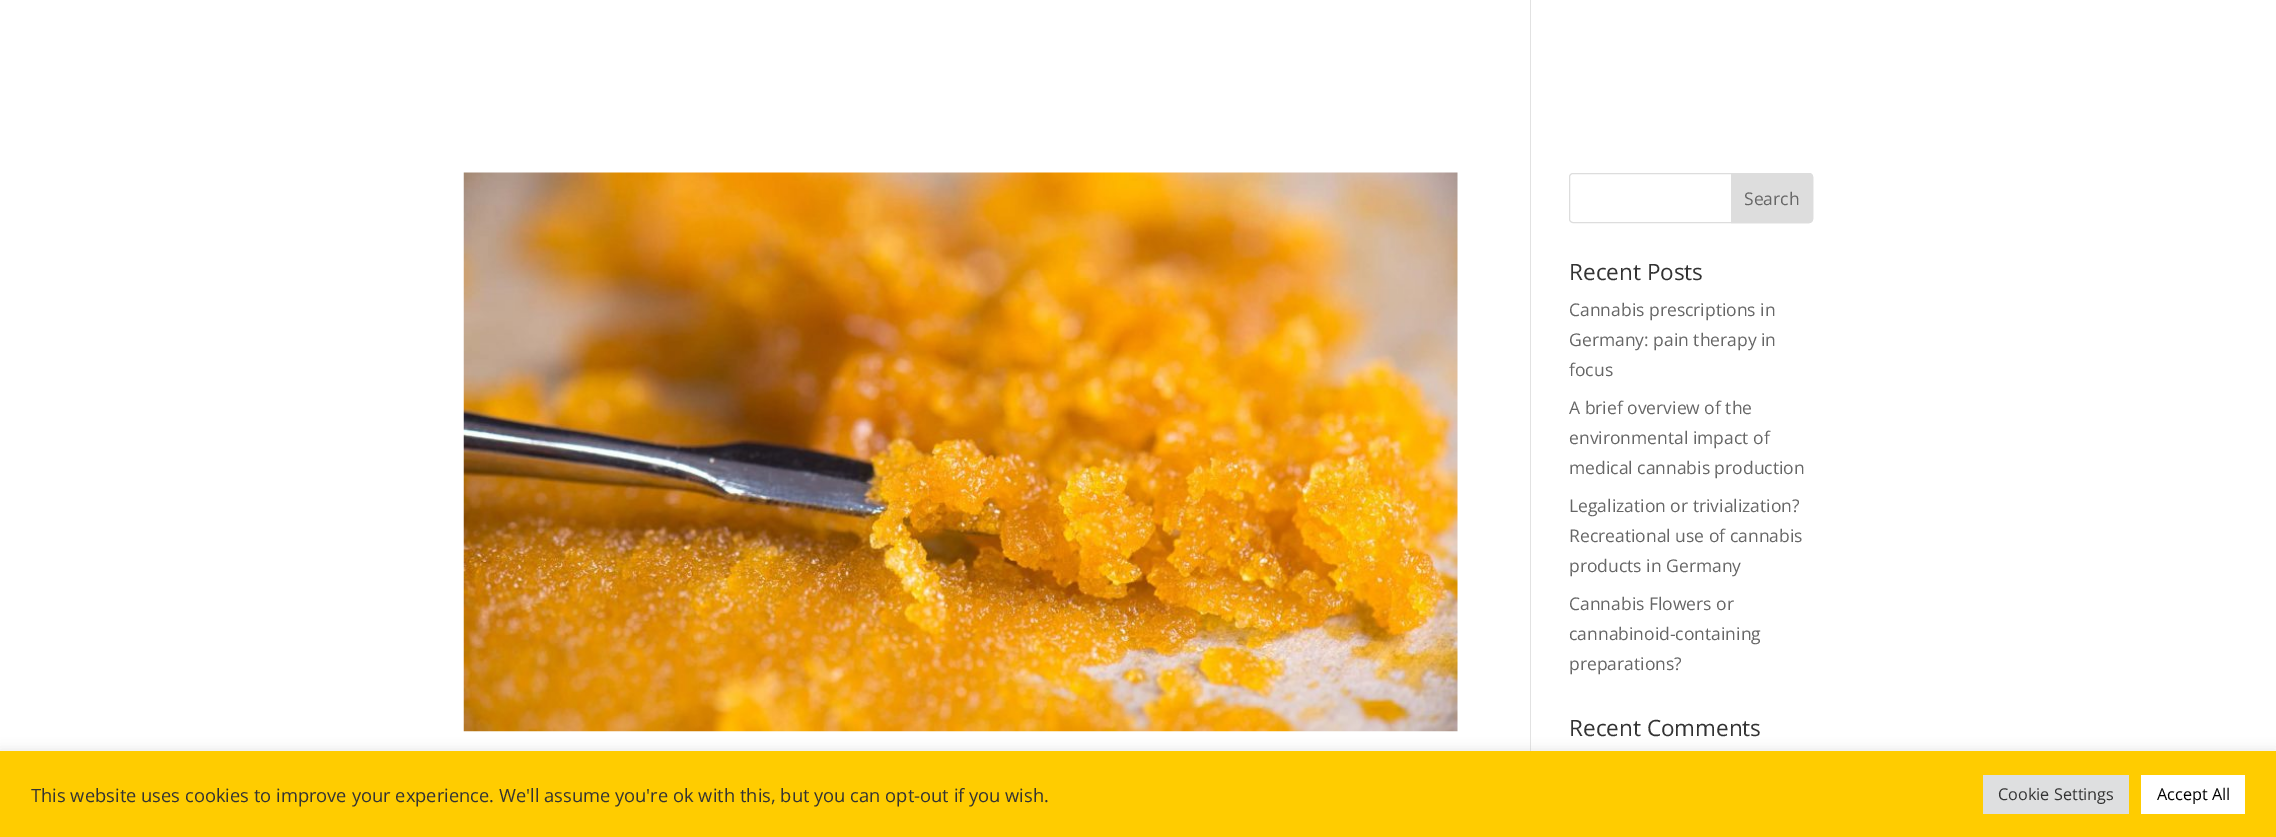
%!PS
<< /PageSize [2276 837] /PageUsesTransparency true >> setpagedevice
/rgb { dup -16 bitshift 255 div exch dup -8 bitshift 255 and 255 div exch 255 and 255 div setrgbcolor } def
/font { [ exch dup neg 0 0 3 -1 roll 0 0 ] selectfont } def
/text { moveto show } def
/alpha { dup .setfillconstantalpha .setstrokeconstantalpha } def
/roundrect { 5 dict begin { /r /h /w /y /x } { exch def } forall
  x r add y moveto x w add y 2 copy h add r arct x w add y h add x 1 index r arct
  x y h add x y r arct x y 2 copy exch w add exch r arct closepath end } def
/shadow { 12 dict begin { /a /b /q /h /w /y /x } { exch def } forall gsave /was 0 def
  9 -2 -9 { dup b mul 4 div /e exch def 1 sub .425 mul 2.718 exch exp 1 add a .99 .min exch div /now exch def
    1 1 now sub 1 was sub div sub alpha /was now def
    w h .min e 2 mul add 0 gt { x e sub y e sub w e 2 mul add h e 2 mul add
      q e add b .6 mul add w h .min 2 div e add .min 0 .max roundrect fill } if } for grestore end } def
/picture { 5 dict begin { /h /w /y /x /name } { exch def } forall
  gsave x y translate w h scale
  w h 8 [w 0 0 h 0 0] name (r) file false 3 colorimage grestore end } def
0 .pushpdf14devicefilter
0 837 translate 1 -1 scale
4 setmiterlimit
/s1 { /OpenSans-Regular 17.5 font 16#666666 rgb } def
/s2 { /OpenSans-Regular 22.5 font 16#333333 rgb } def
/s3 { /OpenSans-Regular 18.33 font 16#333333 rgb } def
/s4 { /OpenSans-Regular 16.25 font 16#333333 rgb } def
/s5 { /OpenSans-Regular 16.25 font 16#000000 rgb } def
16#FFFFFF rgb
0 0 2276 837 rectfill
16#E2E2E2 rgb
1530 0 1 751 rectfill
(pic1.raw) 463 172 995 560 picture
16#DDDDDD rgb
1569.5 173.5 243 49 3.5 roundrect stroke
1731.5 173.5 moveto 1809 173.5 lineto 1811 173.5 1812.5 175 1812.5 177 curveto 1812.5 219 lineto 1812.5 221 1811 222.5 1809 222.5 curveto 1731.5 222.5 lineto closepath gsave fill grestore
stroke
s1
(Search) 1744 205 text
s2
(Recent Posts) 1569 280 text
s1
(Cannabis prescriptions in) 1569 316 text
(Germany: pain therapy in) 1569 346 text
(focus) 1569 376 text
(A brief overview of the) 1569 414 text
(environmental impact of) 1569 444 text
(medical cannabis production) 1569 474 text
(Legalization or trivialization?) 1569 512 text
(Recreational use of cannabis) 1569 542 text
(products in Germany) 1569 572 text
(Cannabis Flowers or) 1569 610 text
(cannabinoid-containing) 1569 640 text
(preparations?) 1569 670 text
s2
(Recent Comments) 1569 736 text
16#ACABAB rgb
0 750 2276 86 0 6 0.3 shadow
16#FFCC00 rgb
0 751 2276 86 rectfill
s3
(This website uses cookies to improve your experience. We'll assume you're ok with this, but you can opt-out if you wish.) 31 802 text
16#DEDFE0 rgb
1983 775 146 39 rectfill
s4
(Cookie Settings) 1998 800 text
16#FFFFFF rgb
2141 775 104 39 rectfill
s5
(Accept All) 2157 800 text
.poppdf14devicefilter showpage
